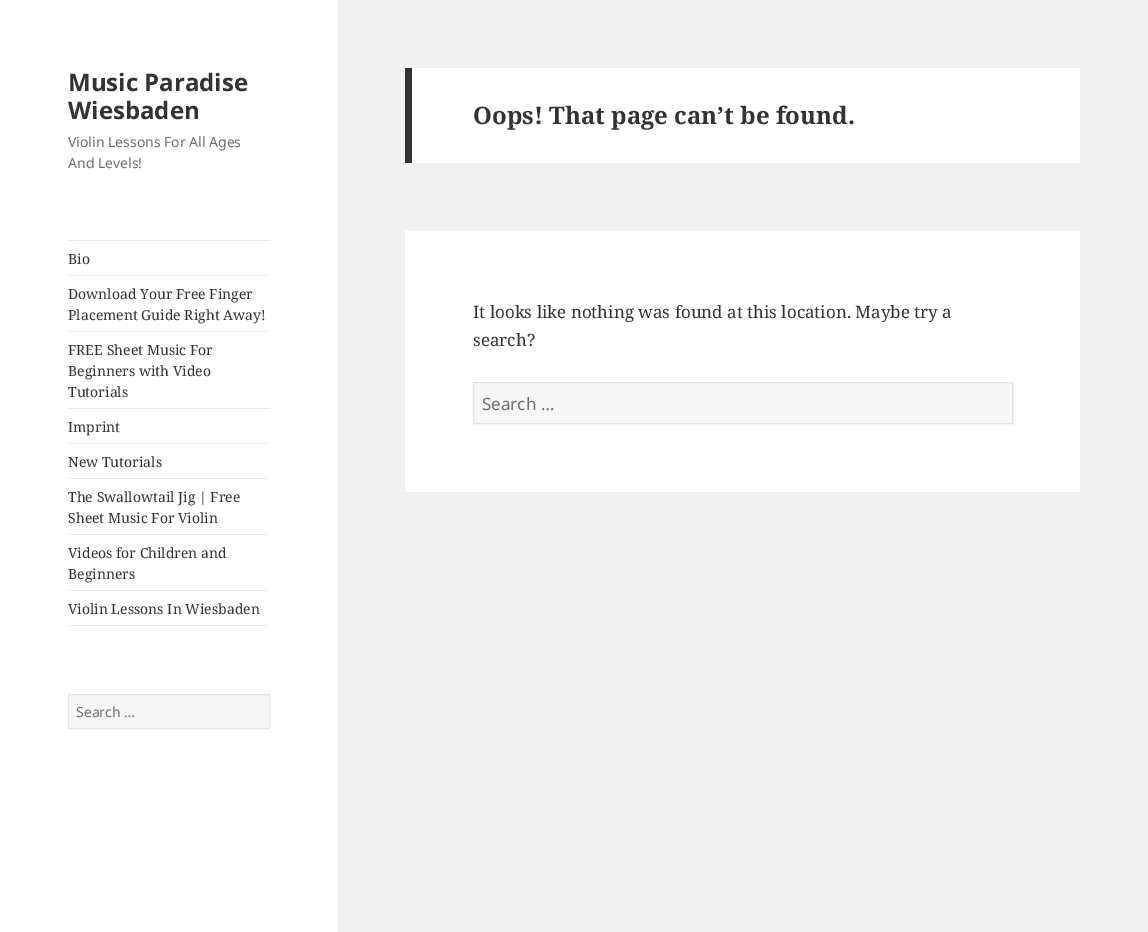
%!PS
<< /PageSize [1148 932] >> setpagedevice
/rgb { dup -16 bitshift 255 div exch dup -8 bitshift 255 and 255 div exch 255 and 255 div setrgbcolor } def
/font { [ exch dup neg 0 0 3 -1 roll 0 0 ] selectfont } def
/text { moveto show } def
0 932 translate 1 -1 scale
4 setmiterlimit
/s1 { /NotoSans-Bold 24 font 16#333333 rgb } def
/s2 { /NotoSans-Regular 14 font 16#6E6E6E rgb } def
/s3 { /NotoSerif-Regular 14 font 16#333333 rgb } def
/s4 { /NotoSerif-Bold 24 font 16#333333 rgb } def
/s5 { /NotoSerif-Regular 17 font 16#333333 rgb } def
/s6 { /NotoSans-Regular 17 font 16#6E6E6E rgb } def
16#F1F1F1 rgb
0 0 1148 932 rectfill
16#FFFFFF rgb
0 0 338 932 rectfill
s1
(Music Paradise) 68 91 text
(Wiesbaden) 68 119 text
s2
(Violin Lessons For All Ages) 68 147 text
(And Levels!) 68 168 text
16#EBEBEB rgb
68 240 202 1 rectfill
68 625 202 1 rectfill
s3
(Bio) 68 264 text
16#EBEBEB rgb
68 275 202 1 rectfill
s3
(Download Your Free Finger) 68 299 text
(Placement Guide Right Away!) 68 320 text
16#EBEBEB rgb
68 331 202 1 rectfill
s3
(FREE Sheet Music For) 68 355 text
(Beginners with Video) 68 376 text
(Tutorials) 68 397 text
16#EBEBEB rgb
68 408 202 1 rectfill
s3
(Imprint) 68 432 text
16#EBEBEB rgb
68 443 202 1 rectfill
s3
(New Tutorials) 68 467 text
16#EBEBEB rgb
68 478 202 1 rectfill
s3
(The Swallowtail Jig | Free) 68 502 text
(Sheet Music For Violin) 68 523 text
16#EBEBEB rgb
68 534 202 1 rectfill
s3
(Videos for Children and) 68 558 text
(Beginners) 68 579 text
16#EBEBEB rgb
68 590 202 1 rectfill
s3
(Violin Lessons In Wiesbaden) 68 614 text
16#F7F7F7 rgb
68.5 694.5 moveto 269.5 694.5 lineto 269.5 728.5 lineto 68.5 728.5 lineto closepath gsave fill grestore
16#E3E3E3 rgb
stroke
s2
(Search …) 76 717 text
16#FFFFFF rgb
412 68 668 95 rectfill
16#333333 rgb
405 68 7 95 rectfill
s4
(Oops! That page can’t be found.) 473 124 text
16#FFFFFF rgb
405 231 675 261 rectfill
s5
(It looks like nothing was found at this location. Maybe try a) 473 318 text
(search?) 473 346 text
16#F7F7F7 rgb
473.5 382.5 moveto 1012.5 382.5 lineto 1012.5 423.5 lineto 473.5 423.5 lineto closepath gsave fill grestore
16#E3E3E3 rgb
stroke
s6
(Search …) 482 410 text
showpage
